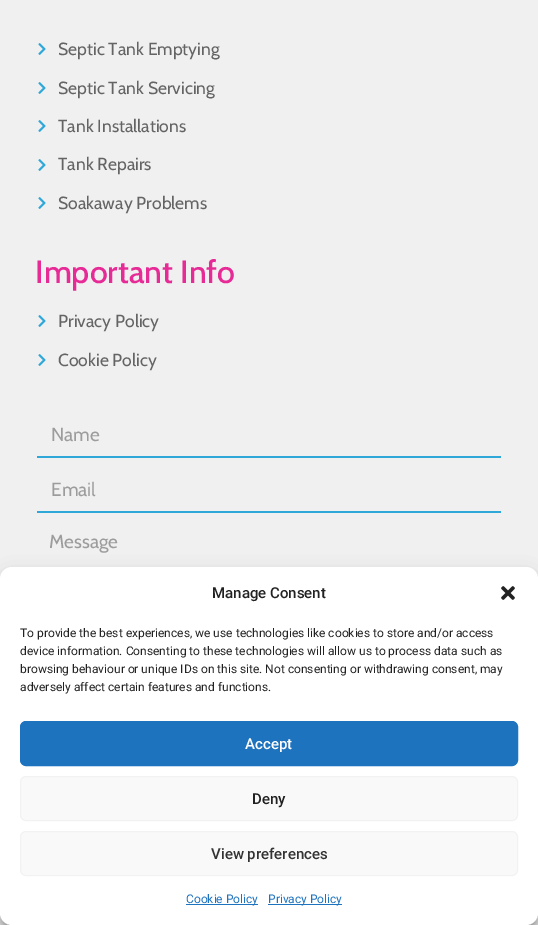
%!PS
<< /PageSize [538 925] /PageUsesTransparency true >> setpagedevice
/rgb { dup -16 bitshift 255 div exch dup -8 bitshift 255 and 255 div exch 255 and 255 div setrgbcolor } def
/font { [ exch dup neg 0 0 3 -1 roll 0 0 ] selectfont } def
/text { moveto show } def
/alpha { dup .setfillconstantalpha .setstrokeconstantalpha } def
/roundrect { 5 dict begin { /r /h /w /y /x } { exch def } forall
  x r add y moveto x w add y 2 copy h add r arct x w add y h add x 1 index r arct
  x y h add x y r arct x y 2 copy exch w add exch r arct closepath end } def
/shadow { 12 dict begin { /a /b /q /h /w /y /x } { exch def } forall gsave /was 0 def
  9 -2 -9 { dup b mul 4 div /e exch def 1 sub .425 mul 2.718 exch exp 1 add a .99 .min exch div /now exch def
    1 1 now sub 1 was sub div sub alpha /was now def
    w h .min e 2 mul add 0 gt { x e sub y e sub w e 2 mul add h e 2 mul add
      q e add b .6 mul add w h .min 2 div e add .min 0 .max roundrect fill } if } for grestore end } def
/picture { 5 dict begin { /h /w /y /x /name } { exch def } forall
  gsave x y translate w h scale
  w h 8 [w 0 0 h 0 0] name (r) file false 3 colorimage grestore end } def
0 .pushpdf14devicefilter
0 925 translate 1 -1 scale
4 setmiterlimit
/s1 { /Cabin-Regular 17.5 font 16#646464 rgb } def
/s2 { /Cabin-Medium 32 font 16#E62B96 rgb } def
/s3 { /Cabin-Regular 19 font 16#9C9C9C rgb } def
/s4 { /Roboto-Medium 15 font 16#222222 rgb } def
/s5 { /Roboto-Regular 12 font 16#222222 rgb } def
/s6 { /Roboto-Medium 15 font 16#FFFFFF rgb } def
/s7 { /Roboto-Medium 15 font 16#333333 rgb } def
/s8 { /Roboto-Regular 12 font 16#1E73BE rgb } def
16#F0F0F0 rgb
0 0 538 925 rectfill
(pic1.raw) 38 43 8 12 picture
s1
(Septic Tank Emptying) 58 55 text
(pic1.raw) 38 82 8 12 picture
(Septic Tank Servicing) 58 94 text
(pic1.raw) 38 120 8 12 picture
(Tank Installations) 58 132 text
(pic1.raw) 38 159 8 12 picture
(Tank Repairs) 58 170 text
(pic1.raw) 38 197 8 12 picture
(Soakaway Problems) 58 209 text
s2
(Important Info) 35 283 text
(pic1.raw) 38 315 8 12 picture
s1
(Privacy Policy) 58 327 text
(pic1.raw) 38 354 8 12 picture
(Cookie Policy) 58 366 text
16#2FA7D9 rgb
37 456 464 2 rectfill
s3
(Name) 51 441 text
16#2FA7D9 rgb
37 511 464 2 rectfill
s3
(Email) 51 496 text
(Message) 49 548 text
16#808080 rgb
468 851 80 60 2 2.5 1 shadow
16#000000 rgb
0 573 538 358 12 3 0.23 shadow
0 577 538 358 12 10 0.19 shadow
16#FFFFFF rgb
0 567 538 358 12 roundrect fill
s4
(Manage Consent) 212 598 text
(pic2.raw) 501 586 14 14 picture
s5
(To provide the best experiences, we use technologies like cookies to store and/or access) 20 637 text
(device information. Consenting to these technologies will allow us to process data such as) 20 655 text
(browsing behaviour or unique IDs on this site. Not consenting or withdrawing consent, may) 20 673 text
(adversely affect certain features and functions.) 20 691 text
16#1E73BE rgb
20.5 721.5 497 44 5.5 roundrect gsave fill grestore
stroke
s6
(Accept) 245 749 text
16#F9F9F9 rgb
20.5 776.5 497 44 5.5 roundrect gsave fill grestore
16#F2F2F2 rgb
stroke
s4
(Deny) 252 804 text
16#F9F9F9 rgb
20.5 831.5 497 44 5.5 roundrect gsave fill grestore
16#F2F2F2 rgb
stroke
s7
(View preferences) 211 859 text
16#1E73BE rgb
186 904 72 1 rectfill
s8
(Cookie Policy) 186 903 text
268 904 74 1 rectfill
(Privacy Policy) 268 903 text
.poppdf14devicefilter showpage
